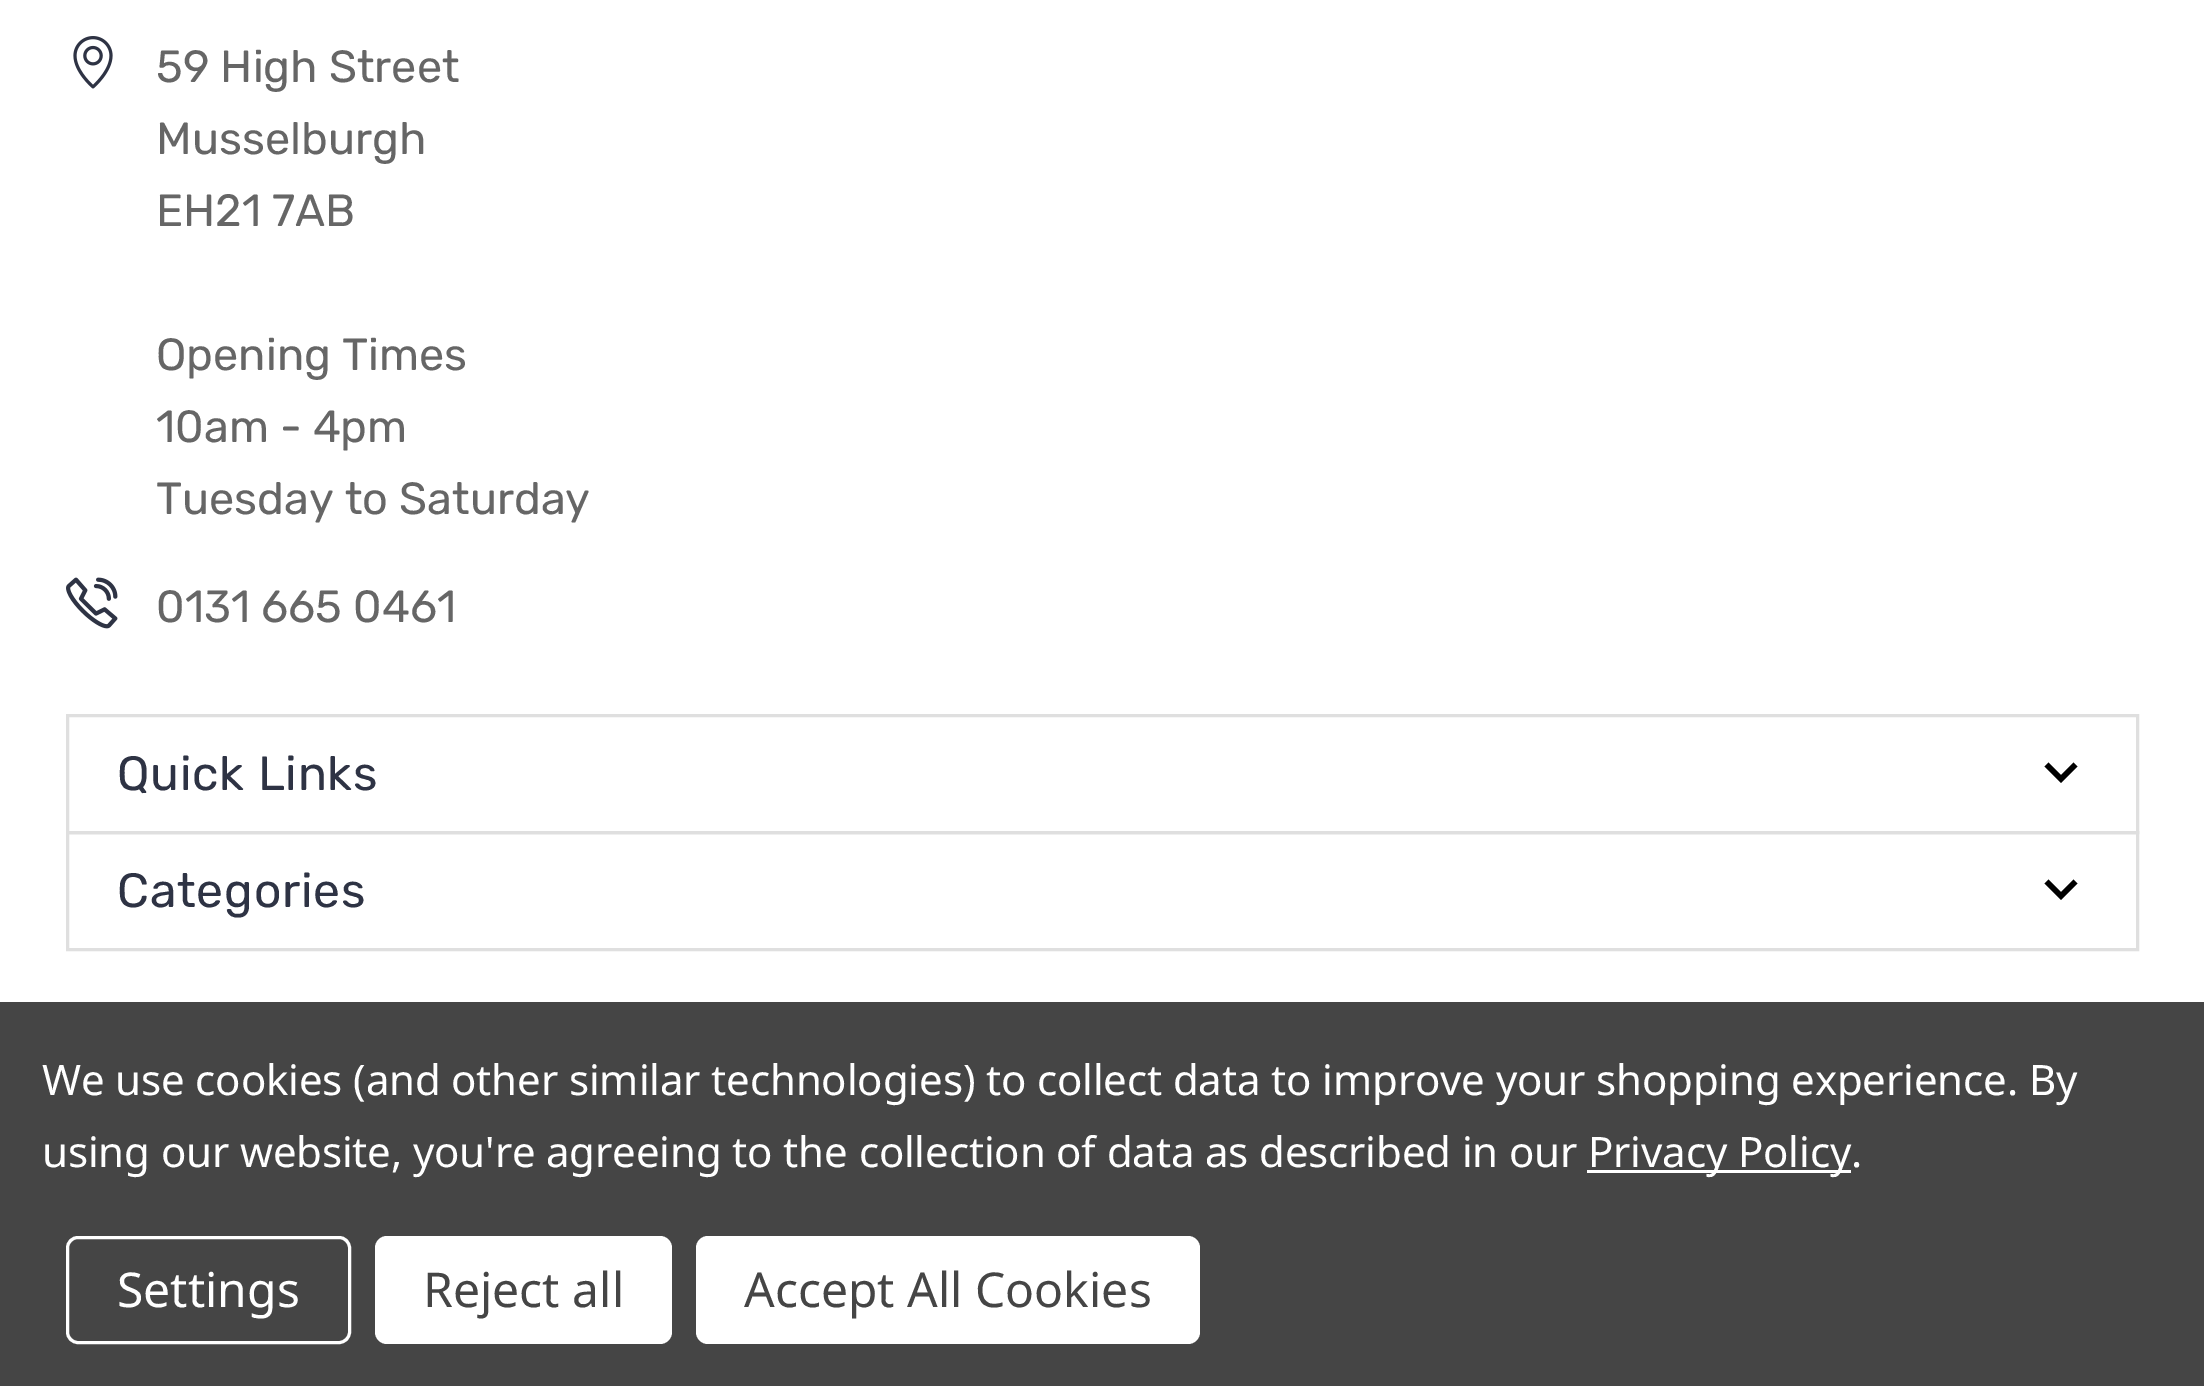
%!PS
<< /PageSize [2204 1386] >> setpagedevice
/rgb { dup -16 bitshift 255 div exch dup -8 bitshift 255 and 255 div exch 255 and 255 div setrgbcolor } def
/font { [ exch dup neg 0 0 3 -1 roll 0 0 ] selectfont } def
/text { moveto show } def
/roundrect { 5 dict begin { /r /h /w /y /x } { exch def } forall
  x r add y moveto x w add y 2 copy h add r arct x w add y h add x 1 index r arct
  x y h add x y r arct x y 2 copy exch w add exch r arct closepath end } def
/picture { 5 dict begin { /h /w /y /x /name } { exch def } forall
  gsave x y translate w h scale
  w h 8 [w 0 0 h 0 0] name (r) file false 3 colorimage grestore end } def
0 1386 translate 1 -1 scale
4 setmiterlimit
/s1 { /Rubik-Regular 45 font 16#666666 rgb } def
/s2 { /NotoSans-Regular 48 font 16#FFFFFF rgb } def
/s3 { /NotoSans-Regular 48 font 16#454545 rgb } def
16#FFFFFF rgb
0 0 2204 1386 rectfill
(pic1.raw) 73 36 40 53 picture
s1
(59 High Street) 156 82 text
(Musselburgh) 156 154 text
(EH21 7AB) 156 226 text
(Opening Times) 156 370 text
(10am - 4pm) 156 442 text
(Tuesday to Saturday) 156 514 text
(pic2.raw) 66 577 52 52 picture
(0131 665 0461) 156 622 text
16#DFDFDF rgb
3 setlinewidth
67.5 715.5 2070 117 rectstroke
/Rubik-Regular 48 font
16#2E3344 rgb
117 790 moveto 0.75 0 (Quick Links) ashow
16#000000 rgb
2048.5 762.5 moveto 2061 775 lineto 2073.5 762.5 lineto 2077.5 766.5 lineto 2061 783 lineto 2044.5 766.5 lineto closepath fill
16#DFDFDF rgb
67.5 832.5 2070 117 rectstroke
16#2E3344 rgb
117 907 moveto 0.75 0 (Categories) ashow
16#000000 rgb
2048.5 879.5 moveto 2061 892 lineto 2073.5 879.5 lineto 2077.5 883.5 lineto 2061 900 lineto 2044.5 883.5 lineto closepath fill
16#454545 rgb
0 1002 2204 384 rectfill
/NotoSans-Regular 42 font
16#FFFFFF rgb
42 1095 moveto -0.15 0 (We use cookies \(and other similar technologies\) to collect data to improve your shopping experience. By) ashow
42 1167 moveto -0.15 0 (using our website, you're agreeing to the collection of data as described in our) ashow
1587 1170 264 3 rectfill
1588 1167 moveto -0.15 0 (Privacy Policy.) ashow
67.5 1237.5 282 105 10.5 roundrect stroke
s2
(Settings) 117 1307 text
375 1236 297 108 12 roundrect fill
s3
(Reject all) 423 1307 text
16#FFFFFF rgb
696 1236 504 108 12 roundrect fill
s3
(Accept All Cookies) 744 1307 text
showpage
